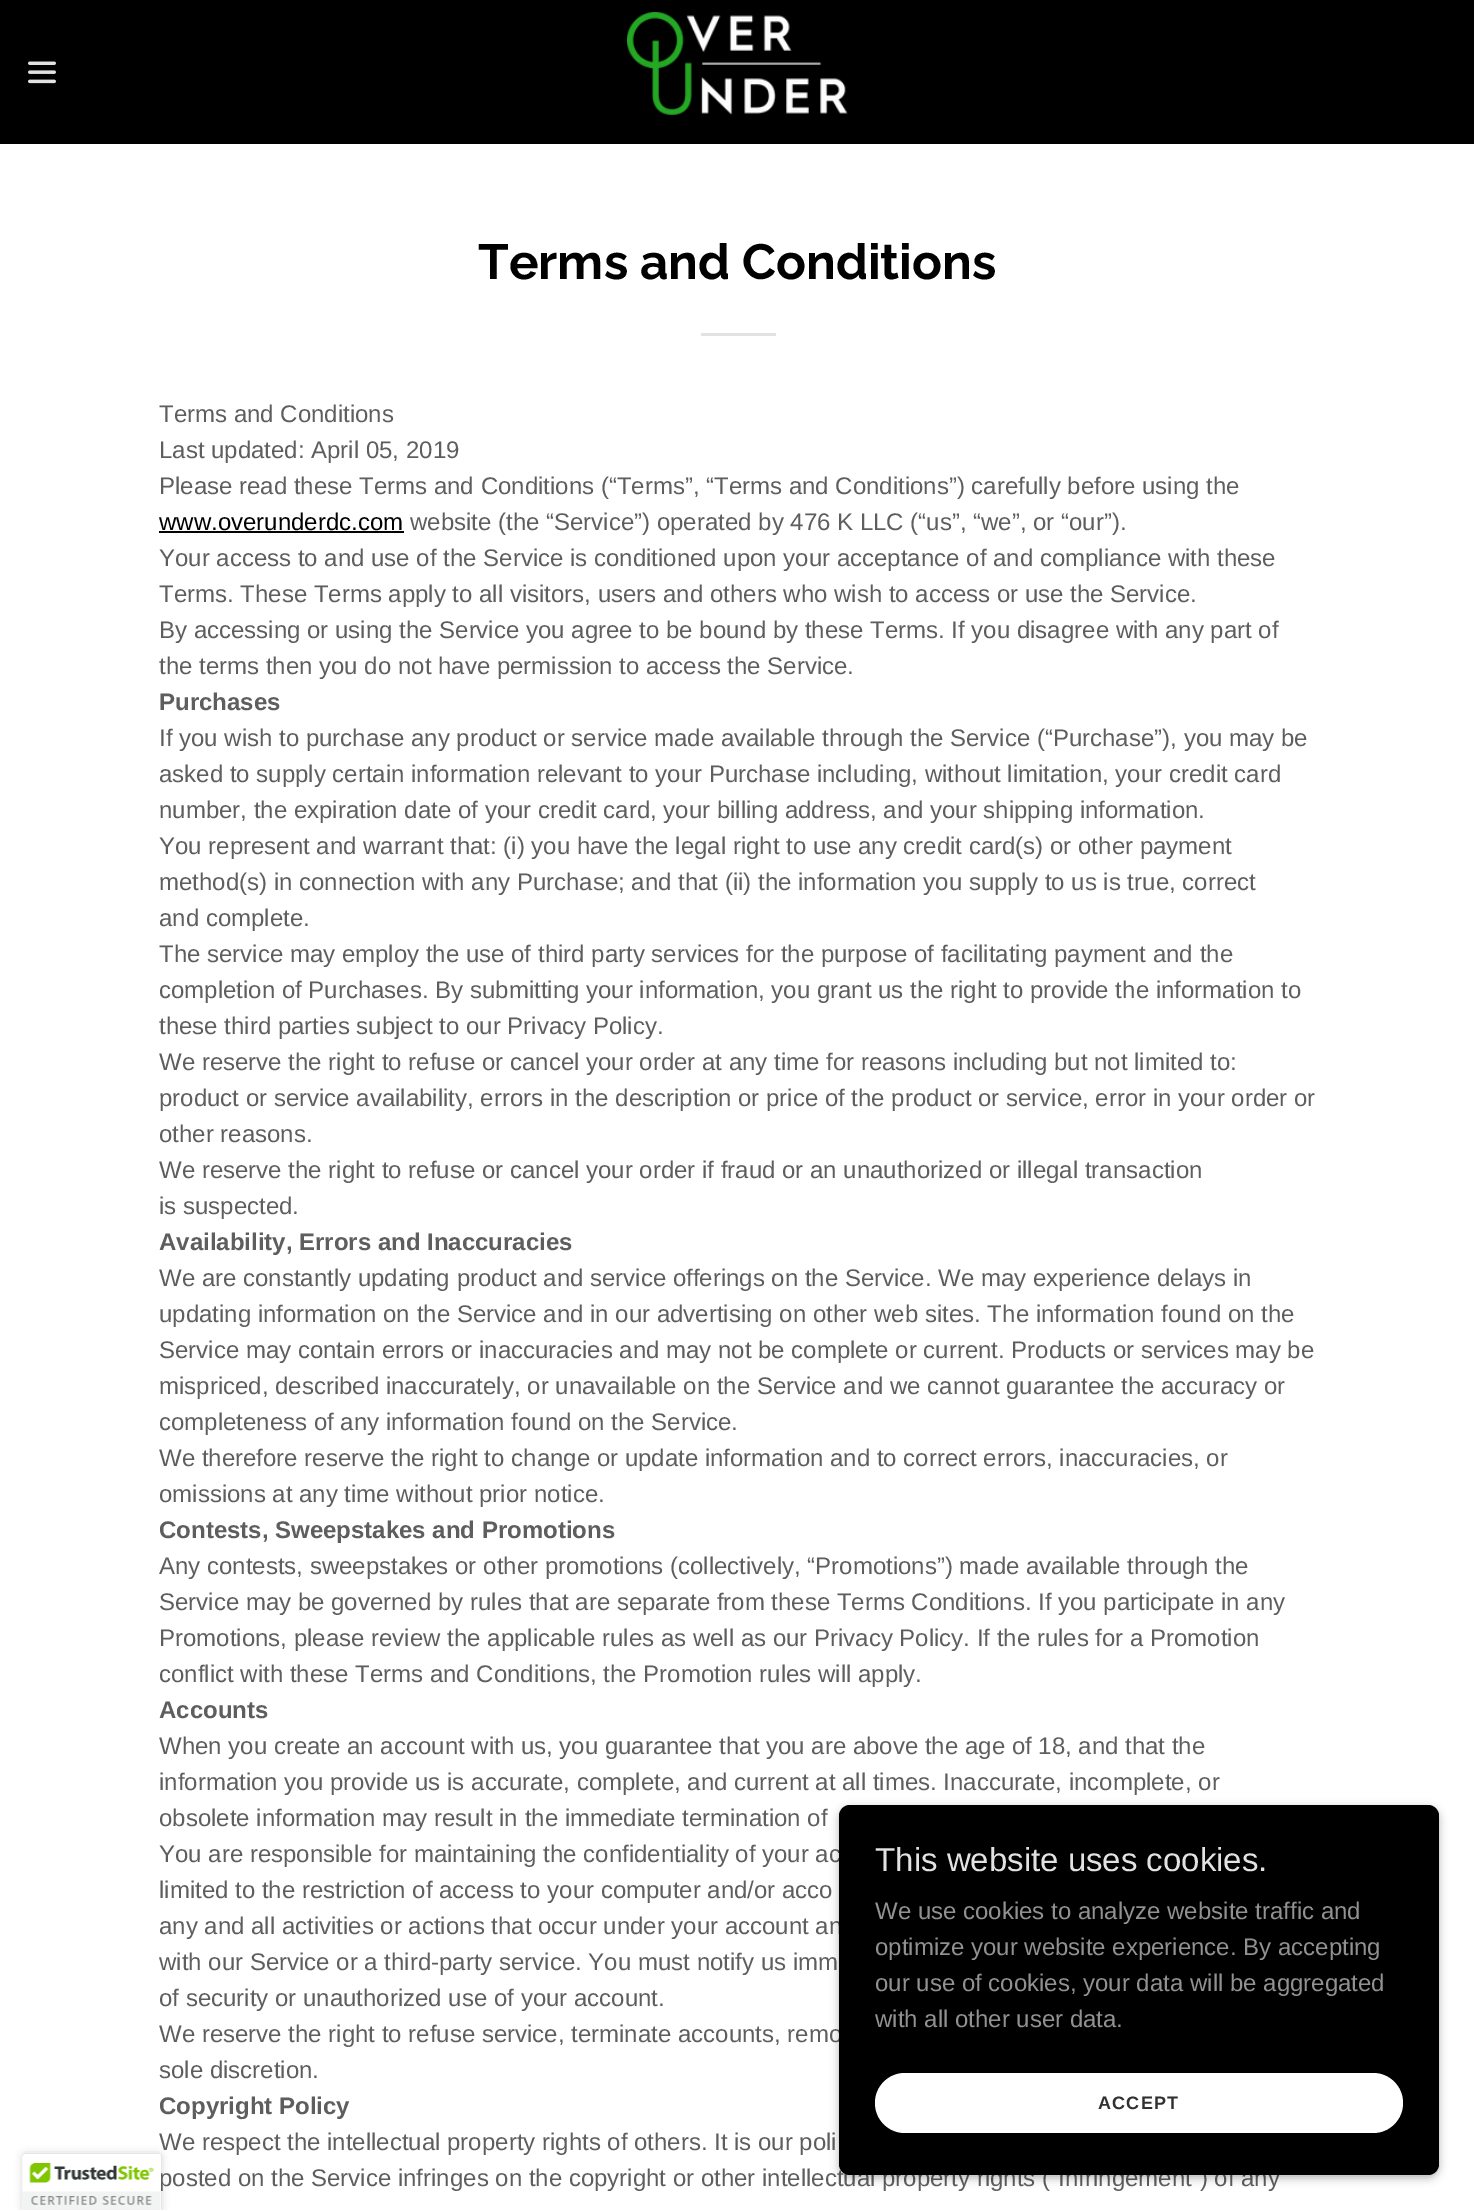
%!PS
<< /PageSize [1474 2210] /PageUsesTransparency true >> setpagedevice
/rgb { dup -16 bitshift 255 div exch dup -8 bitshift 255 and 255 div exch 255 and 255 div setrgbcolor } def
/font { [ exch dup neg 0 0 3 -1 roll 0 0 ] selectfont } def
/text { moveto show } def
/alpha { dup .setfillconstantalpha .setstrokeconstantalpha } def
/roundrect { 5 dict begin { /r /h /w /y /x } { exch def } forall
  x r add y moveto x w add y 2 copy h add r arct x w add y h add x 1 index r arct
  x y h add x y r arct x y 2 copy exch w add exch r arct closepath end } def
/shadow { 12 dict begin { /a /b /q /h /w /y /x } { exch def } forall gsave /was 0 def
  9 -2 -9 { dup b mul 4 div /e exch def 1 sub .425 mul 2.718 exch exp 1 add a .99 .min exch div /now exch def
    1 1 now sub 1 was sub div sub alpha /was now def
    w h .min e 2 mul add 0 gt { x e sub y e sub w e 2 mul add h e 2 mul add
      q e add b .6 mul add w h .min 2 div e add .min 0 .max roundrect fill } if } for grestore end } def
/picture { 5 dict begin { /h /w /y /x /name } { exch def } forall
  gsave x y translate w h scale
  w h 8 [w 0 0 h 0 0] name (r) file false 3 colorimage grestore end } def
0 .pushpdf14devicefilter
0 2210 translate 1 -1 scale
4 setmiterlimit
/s1 { /LiberationSans-Regular 24 font 16#5E5E5E rgb } def
/s2 { /Raleway-Bold 49.5 font 16#000000 rgb } def
/s3 { /LiberationSans-Regular 24 font 16#000000 rgb } def
/s4 { /LiberationSans-Bold 24 font 16#5E5E5E rgb } def
/s5 { /LiberationSans-Regular 33 font 16#E2E2E2 rgb } def
/s6 { /LiberationSans-Regular 24 font 16#919191 rgb } def
16#000000 rgb
0 0 1474 2210 rectfill
16#FFFFFF rgb
0 144 1474 2066 rectfill
16#000000 rgb
23 2154 138 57 3 4 0.2 shadow
s1
(We respect the intellectual property rights of others. It is our poli) 159 2150 text
(posted on the Service infringes on the copyright or other intellectual property rights \(“Infringement”\) of any) 159 2186 text
16#FFFFFF rgb
26 2154 moveto 158 2154 lineto 159.5 2154 161 2155.5 161 2157 curveto 161 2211 lineto 23 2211 lineto 23 2157 lineto 23 2155.5 24.5 2154 26 2154 curveto closepath fill
(pic1.raw) 22 2156 139 54 picture
(pic2.raw) 28 61 28 23 picture
(pic3.raw) 627 12 221 103 picture
s2
(Terms and Conditions) 478 279 text
16#E2E2E2 rgb
701 333 75 3 rectfill
s1
(Terms and Conditions) 159 422 text
(Last updated: April 05, 2019) 159 458 text
(Please read these Terms and Conditions \(“Terms”, “Terms and Conditions”\) carefully before using the) 159 494 text
s3
(www.overunderdc.com) 159 530 text
159 531 245 2 rectfill
s1
(website \(the “Service”\) operated by 476 K LLC \(“us”, “we”, or “our”\).) 410 530 text
(Your access to and use of the Service is conditioned upon your acceptance of and compliance with these) 159 566 text
(Terms. These Terms apply to all visitors, users and others who wish to access or use the Service.) 159 602 text
(By accessing or using the Service you agree to be bound by these Terms. If you disagree with any part of) 159 638 text
(the terms then you do not have permission to access the Service.) 159 674 text
s4
(Purchases) 159 710 text
s1
(If you wish to purchase any product or service made available through the Service \(“Purchase”\), you may be) 159 746 text
(asked to supply certain information relevant to your Purchase including, without limitation, your credit card) 159 782 text
(number, the expiration date of your credit card, your billing address, and your shipping information.) 159 818 text
(You represent and warrant that: \(i\) you have the legal right to use any credit card\(s\) or other payment) 159 854 text
(method\(s\) in connection with any Purchase; and that \(ii\) the information you supply to us is true, correct) 159 890 text
(and complete.) 159 926 text
(The service may employ the use of third party services for the purpose of facilitating payment and the) 159 962 text
(completion of Purchases. By submitting your information, you grant us the right to provide the information to) 159 998 text
(these third parties subject to our Privacy Policy.) 159 1034 text
(We reserve the right to refuse or cancel your order at any time for reasons including but not limited to:) 159 1070 text
(product or service availability, errors in the description or price of the product or service, error in your order or) 159 1106 text
(other reasons.) 159 1142 text
(We reserve the right to refuse or cancel your order if fraud or an unauthorized or illegal transaction) 159 1178 text
(is suspected.) 159 1214 text
s4
(Availability, Errors and Inaccuracies) 159 1250 text
s1
(We are constantly updating product and service offerings on the Service. We may experience delays in) 159 1286 text
(updating information on the Service and in our advertising on other web sites. The information found on the) 159 1322 text
(Service may contain errors or inaccuracies and may not be complete or current. Products or services may be) 159 1358 text
(mispriced, described inaccurately, or unavailable on the Service and we cannot guarantee the accuracy or) 159 1394 text
(completeness of any information found on the Service.) 159 1430 text
(We therefore reserve the right to change or update information and to correct errors, inaccuracies, or) 159 1466 text
(omissions at any time without prior notice.) 159 1502 text
s4
(Contests, Sweepstakes and Promotions) 159 1538 text
s1
(Any contests, sweepstakes or other promotions \(collectively, “Promotions”\) made available through the) 159 1574 text
(Service may be governed by rules that are separate from these Terms Conditions. If you participate in any) 159 1610 text
(Promotions, please review the applicable rules as well as our Privacy Policy. If the rules for a Promotion) 159 1646 text
(conflict with these Terms and Conditions, the Promotion rules will apply.) 159 1682 text
s4
(Accounts) 159 1718 text
s1
(When you create an account with us, you guarantee that you are above the age of 18, and that the) 159 1754 text
(information you provide us is accurate, complete, and current at all times. Inaccurate, incomplete, or) 159 1790 text
(obsolete information may result in the immediate termination of) 159 1826 text
(You are responsible for maintaining the confidentiality of your ac) 159 1862 text
(limited to the restriction of access to your computer and/or acco) 159 1898 text
(any and all activities or actions that occur under your account an) 159 1934 text
(with our Service or a third-party service. You must notify us imm) 159 1970 text
(of security or unauthorized use of your account.) 159 2006 text
(We reserve the right to refuse service, terminate accounts, remo) 159 2042 text
(sole discretion.) 159 2078 text
s4
(Copyright Policy) 159 2114 text
16#000000 rgb
839 1808 600 370 11 4.5 0.3 shadow
839 1805 600 370 11 roundrect fill
s5
(This website uses cookies.) 875 1871 text
s6
(We use cookies to analyze website traffic and) 875 1919 text
(optimize your website experience. By accepting) 875 1955 text
(our use of cookies, your data will be aggregated) 875 1991 text
(with all other user data.) 875 2027 text
16#FFFFFF rgb
875 2073 528 60 30 roundrect fill
/LiberationSans-Bold 18 font
16#303030 rgb
1098 2109 moveto 1.25 0 (ACCEPT) ashow
.poppdf14devicefilter showpage
